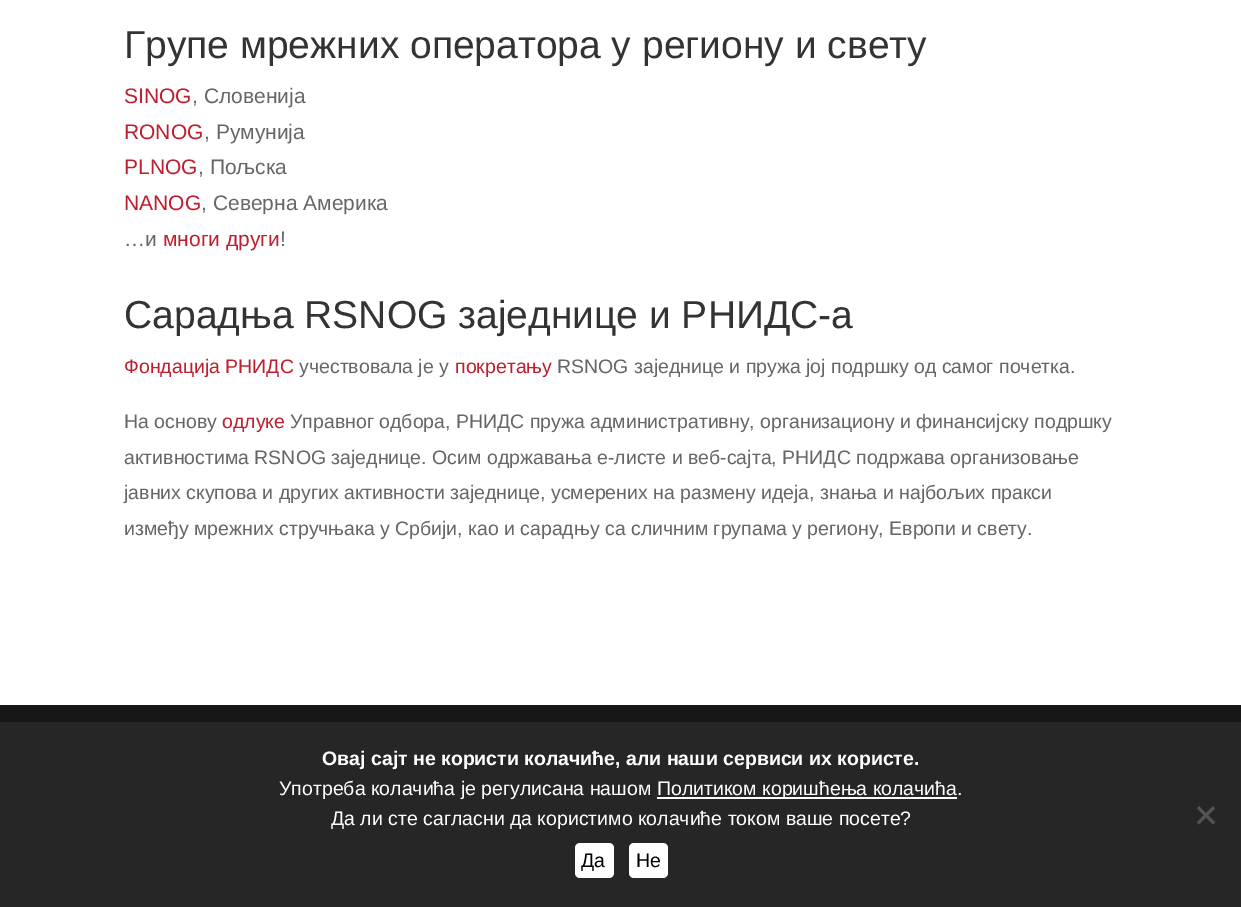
%!PS
<< /PageSize [1241 907] >> setpagedevice
/rgb { dup -16 bitshift 255 div exch dup -8 bitshift 255 and 255 div exch 255 and 255 div setrgbcolor } def
/font { [ exch dup neg 0 0 3 -1 roll 0 0 ] selectfont } def
/text { moveto show } def
/roundrect { 5 dict begin { /r /h /w /y /x } { exch def } forall
  x r add y moveto x w add y 2 copy h add r arct x w add y h add x 1 index r arct
  x y h add x y r arct x y 2 copy exch w add exch r arct closepath end } def
0 907 translate 1 -1 scale
4 setmiterlimit
/s1 { /LiberationSans-Regular 39 font 16#333333 rgb } def
/s2 { /LiberationSans-Regular 21 font 16#BE1E2D rgb } def
/s3 { /LiberationSans-Regular 21 font 16#666666 rgb } def
/s4 { /LiberationSans-Regular 19.5 font 16#BE1E2D rgb } def
/s5 { /LiberationSans-Regular 19.5 font 16#666666 rgb } def
/s6 { /LiberationSans-Bold 19.5 font 16#FFFFFF rgb } def
/s7 { /LiberationSans-Regular 19.5 font 16#FFFFFF rgb } def
/s8 { /LiberationSans-Regular 19.5 font 16#000000 rgb } def
16#FFFFFF rgb
0 0 1241 907 rectfill
s1
(Групе мрежних оператора у региону и свету) 124 58 text
s2
(SINOG) 124 103 text
s3
(, Словенија) 192 103 text
s2
(RONOG) 124 139 text
s3
(, Румунија) 204 139 text
s2
(PLNOG) 124 174 text
s3
(, Пољска) 198 174 text
s2
(NANOG) 124 210 text
s3
(, Северна Америка) 201 210 text
(…и) 124 246 text
s2
(многи други) 163 246 text
s3
(!) 280 246 text
s1
(Сарадња RSNOG заједнице и РНИДС-а) 124 328 text
s4
(Фондација РНИДС) 124 373 text
s5
(учествовала је у) 299 373 text
s4
(покретању) 455 373 text
s5
(RSNOG заједнице и пружа јој подршку од самог почетка.) 557 373 text
(На основу) 124 428 text
s4
(одлуке) 222 428 text
s5
(Управног одбора, РНИДС пружа административну, организациону и финансијску подршку) 290 428 text
(активностима RSNOG заједнице. Осим одржавања е-листе и веб-сајта, РНИДС подржава организовање) 124 464 text
(јавних скупова и других активности заједнице, усмерених на размену идеја, знања и најбољих пракси) 124 499 text
(између мрежних стручњака у Србији, као и сарадњу са сличним групама у региону, Европи и свету.) 124 535 text
16#171717 rgb
0 705 1241 17 rectfill
16#262626 rgb
0 722 1241 185 rectfill
s6
(Овај сајт не користи колачиће, али наши сервиси их користе.) 322 765 text
s7
(Употреба колачића је регулисана нашом) 279 795 text
657 797 300 2 rectfill
(Политиком коришћења колачића.) 657 795 text
(Да ли сте сагласни да користимо колачиће током ваше посете?) 331 825 text
16#535353 rgb
1213 806 moveto 1215 808.5 lineto 1199 824.5 lineto 1197 822 lineto closepath fill
1197 808.5 moveto 1199 806 lineto 1215 822 lineto 1213 824.5 lineto closepath fill
16#FFFFFF rgb
575 843 39 35 5 roundrect fill
s8
(Да) 581 867 text
16#FFFFFF rgb
629 843 39 35 5 roundrect fill
s8
(Не) 636 867 text
showpage
